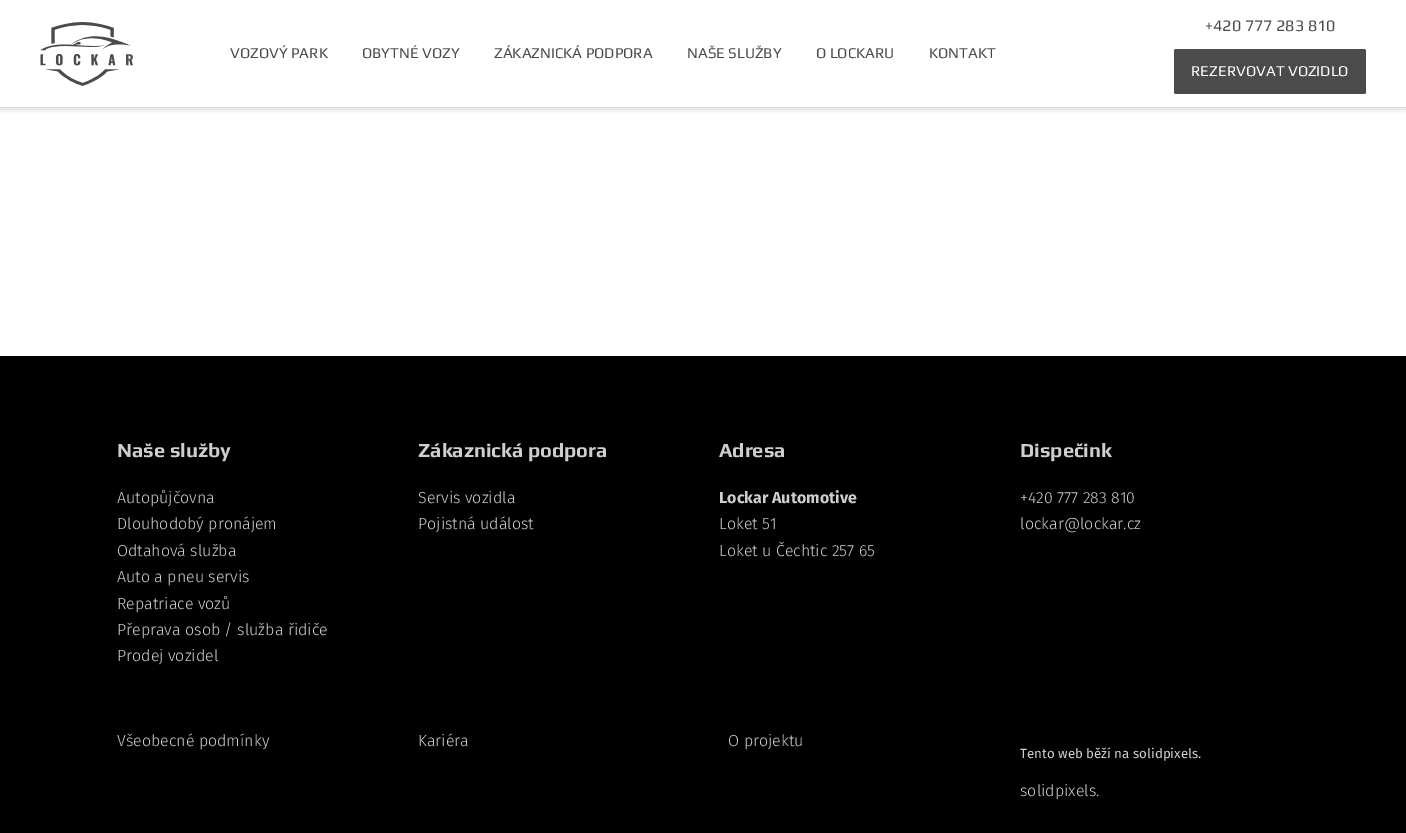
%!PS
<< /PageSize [1406 833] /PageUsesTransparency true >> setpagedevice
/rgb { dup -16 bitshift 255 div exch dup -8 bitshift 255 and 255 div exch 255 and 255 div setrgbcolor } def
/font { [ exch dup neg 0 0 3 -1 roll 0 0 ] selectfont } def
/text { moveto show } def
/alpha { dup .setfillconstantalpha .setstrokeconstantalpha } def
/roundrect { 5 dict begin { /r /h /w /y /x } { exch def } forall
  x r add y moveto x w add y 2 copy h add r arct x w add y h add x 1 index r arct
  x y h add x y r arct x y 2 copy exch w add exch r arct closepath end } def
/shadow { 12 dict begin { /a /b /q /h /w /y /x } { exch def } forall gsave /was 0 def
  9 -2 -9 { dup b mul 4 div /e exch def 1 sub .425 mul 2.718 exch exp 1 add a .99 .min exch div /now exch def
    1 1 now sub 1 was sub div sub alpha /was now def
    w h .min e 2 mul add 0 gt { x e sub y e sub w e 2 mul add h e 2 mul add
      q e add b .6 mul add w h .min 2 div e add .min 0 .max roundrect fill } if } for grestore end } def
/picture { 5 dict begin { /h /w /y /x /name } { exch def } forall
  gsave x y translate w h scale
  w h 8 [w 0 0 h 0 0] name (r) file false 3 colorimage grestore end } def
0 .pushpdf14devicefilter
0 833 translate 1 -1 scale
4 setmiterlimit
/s1 { /Play-Regular 15 font 16#4B4B4B rgb } def
/s2 { /Play-Regular 16 font 16#4B4B4B rgb } def
/s3 { /Play-Regular 15 font 16#FFFFFF rgb } def
/s4 { /Play-Bold 20 font 16#CECECE rgb } def
/s5 { /FiraSans-Light 16 font 16#CECECE rgb } def
/s6 { /FiraSans-Bold 16 font 16#CECECE rgb } def
/s7 { /FiraSans-Regular 13.3 font 16#CECECE rgb } def
16#FFFFFF rgb
0 0 1406 833 rectfill
gsave
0 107 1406 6 rectclip
16#000000 rgb
0 0 1406 107 0 4 0.3 shadow
grestore
(pic1.raw) 40 22 93 64 picture
s1
(VOZOVÝ PARK) 230 58 text
(OBYTNÉ VOZY) 362 58 text
(ZÁKAZNICKÁ PODPORA) 494 58 text
(NAŠE SLUŽBY) 687 58 text
(O LOCKARU) 816 58 text
(KONTAKT) 929 58 text
s2
(+420 777 283 810) 1205 31 text
1174 49 192 45 2 roundrect fill
s3
(REZERVOVAT VOZIDLO) 1191 76 text
16#000000 rgb
0 356 1406 477 rectfill
s4
(Naše služby) 117 457 text
s5
(Autopůjčovna) 117 503 text
(Dlouhodobý pronájem) 117 529 text
(Odtahová služba) 117 556 text
(Auto a pneu servis) 117 582 text
(Repatriace vozů) 117 609 text
(Přeprava osob / služba řidiče) 117 635 text
(Prodej vozidel) 117 661 text
s4
(Zákaznická podpora) 418 457 text
s5
(Servis vozidla) 418 503 text
(Pojistná událost) 418 529 text
s4
(Adresa) 719 457 text
s6
(Lockar Automotive) 719 503 text
s5
(Loket 51) 719 529 text
(Loket u Čechtic 257 65) 719 556 text
s4
(Dispečink) 1020 457 text
s5
(+420 777 283 810) 1020 503 text
(lockar@lockar.cz) 1020 529 text
(Všeobecné podmínky) 117 746 text
(Kariéra) 418 746 text
(O projektu) 728 746 text
s7
(Tento web běží na solidpixels.) 1020 758 text
s5
(solidpixels.) 1020 796 text
.poppdf14devicefilter showpage
